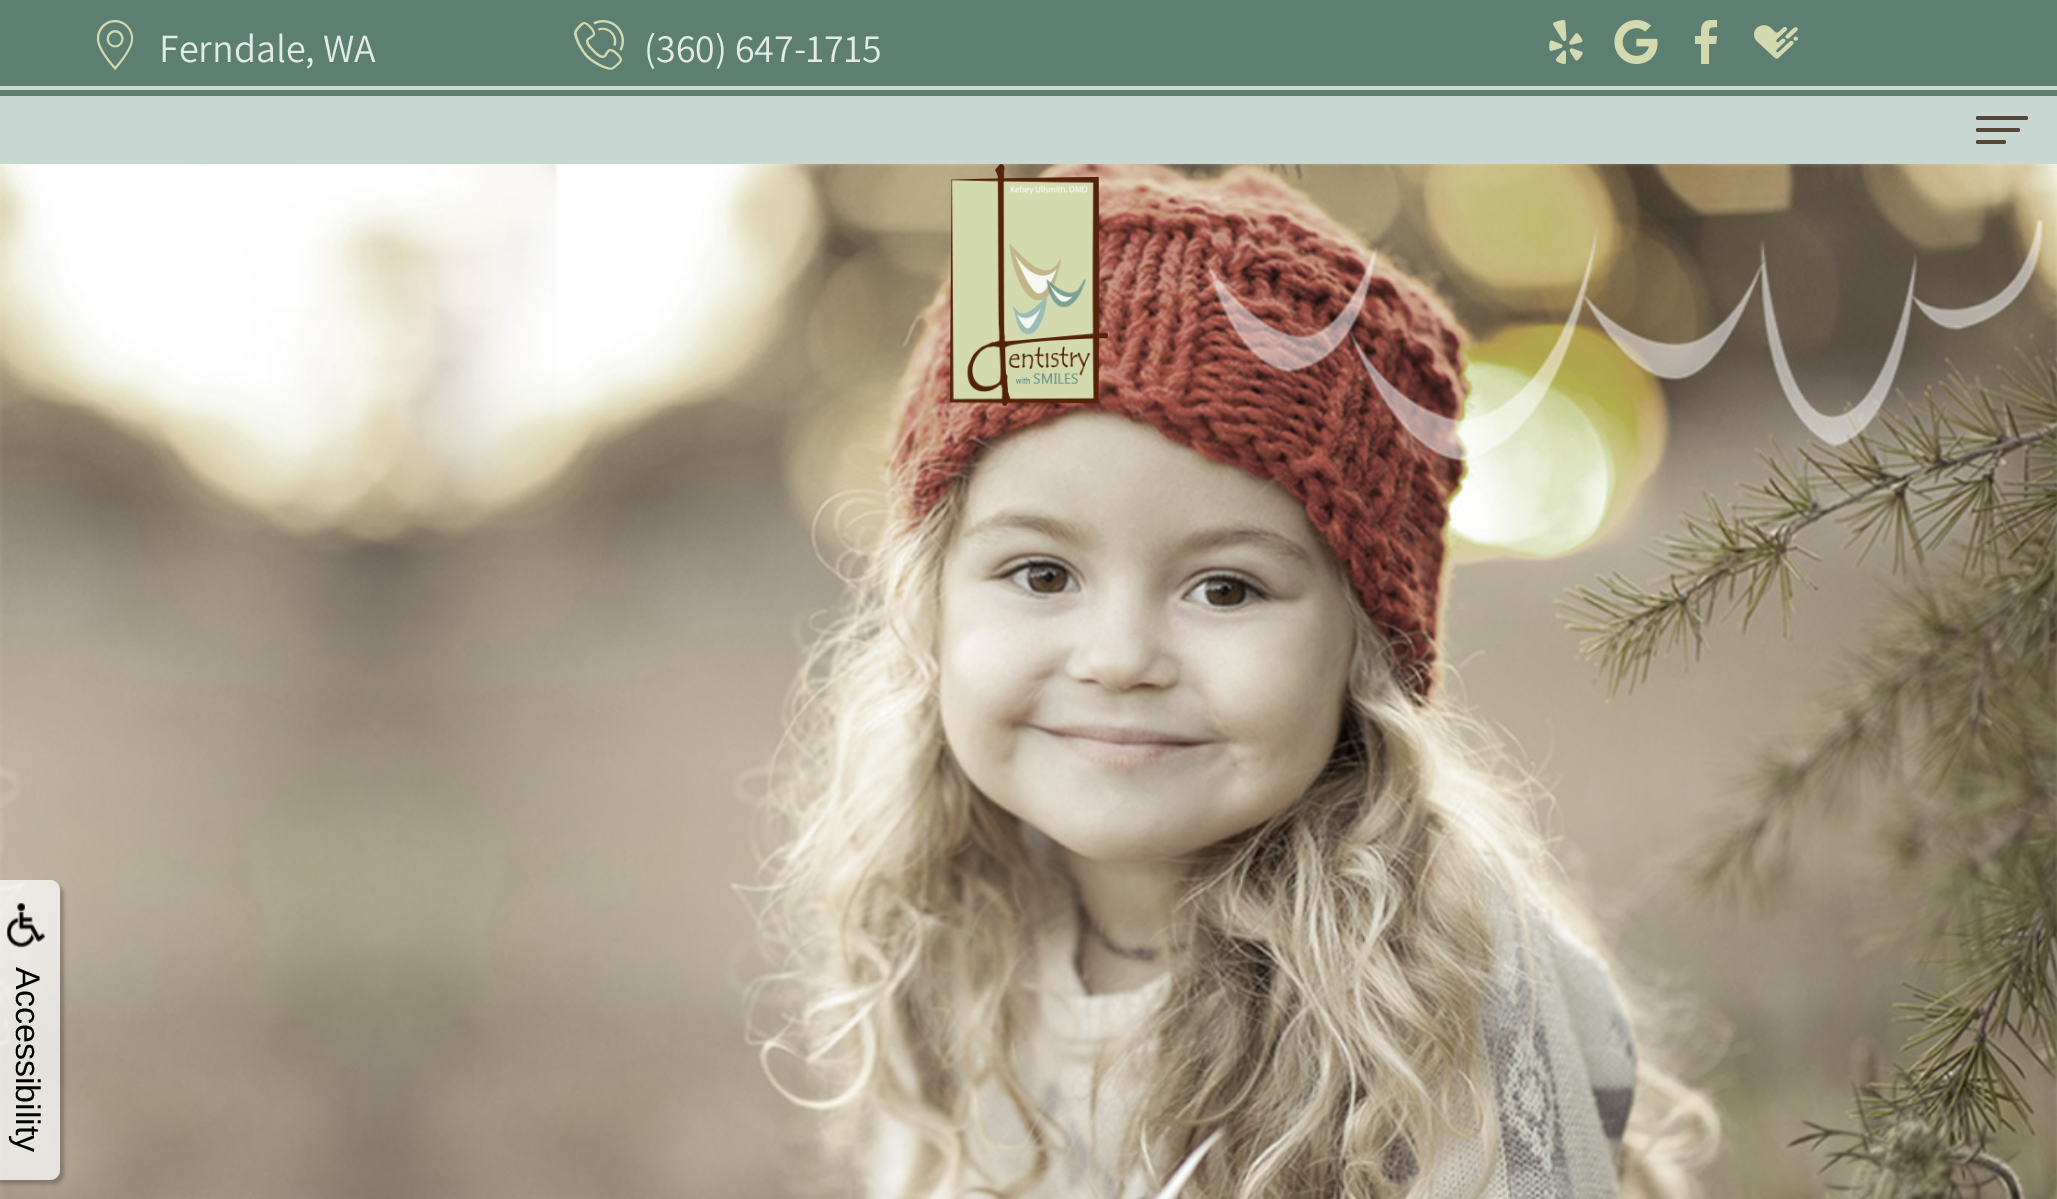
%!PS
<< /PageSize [2057 1199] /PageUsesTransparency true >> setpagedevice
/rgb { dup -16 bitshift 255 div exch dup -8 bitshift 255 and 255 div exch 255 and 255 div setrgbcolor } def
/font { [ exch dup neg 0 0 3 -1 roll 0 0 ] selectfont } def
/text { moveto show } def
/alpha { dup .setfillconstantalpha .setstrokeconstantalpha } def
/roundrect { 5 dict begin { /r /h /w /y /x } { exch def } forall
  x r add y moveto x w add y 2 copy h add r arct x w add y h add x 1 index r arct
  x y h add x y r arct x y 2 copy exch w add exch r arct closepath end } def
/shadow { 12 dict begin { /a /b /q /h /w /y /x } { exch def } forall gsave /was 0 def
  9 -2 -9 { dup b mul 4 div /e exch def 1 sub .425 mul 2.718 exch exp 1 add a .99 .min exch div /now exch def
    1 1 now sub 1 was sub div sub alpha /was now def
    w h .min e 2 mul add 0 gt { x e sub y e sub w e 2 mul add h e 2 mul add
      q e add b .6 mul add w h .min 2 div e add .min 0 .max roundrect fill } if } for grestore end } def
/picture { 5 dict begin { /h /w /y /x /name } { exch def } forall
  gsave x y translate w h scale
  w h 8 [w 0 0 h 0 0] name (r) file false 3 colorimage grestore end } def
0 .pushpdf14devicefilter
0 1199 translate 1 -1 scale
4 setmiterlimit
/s1 { /Assistant-ExtraLight 40 font 16#E3EBE8 rgb } def
16#FFFFFF rgb
0 0 2057 1199 rectfill
16#5C7F72 rgb
0 0 2057 96 rectfill
(pic1.raw) 96 20 38 50 picture
s1
(Ferndale, WA) 159 62 text
(pic2.raw) 574 20 50 50 picture
(\(360\) 647-1715) 644 62 text
(pic3.raw) 1549 20 34 44 picture
(pic4.raw) 1614 20 44 44 picture
gsave
1684 20 44 44 rectclip
16#D4DAB0 rgb
1701 64 moveto 1701 44 lineto 1695 44 lineto 1695 36 lineto 1701 36 lineto 1701 23 1703 19 1717 20 curveto 1717 27 lineto 1708 27 1709 28 1709 36 curveto 1717 36 lineto 1716 44 lineto 1709 44 lineto 1709 64 lineto fill
grestore
(pic5.raw) 1754 25 44 34 picture
16#C8D7D2 rgb
0 86 2057 4 rectfill
0 96 2057 68 rectfill
16#534837 rgb
1976 116 52 4 2 roundrect fill
1976 128 44 4 2 roundrect fill
1976 140 30 4 2 roundrect fill
(pic6.raw) 0 164 2057 1035 picture
(pic7.raw) 950 164 158 242 picture
gsave
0 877 moveto 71 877 lineto 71 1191 lineto 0 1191 lineto closepath -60 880 moveto 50 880 lineto 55.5 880 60 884.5 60 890 curveto 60 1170 lineto 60 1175.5 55.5 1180 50 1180 curveto -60 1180 lineto closepath eoclip newpath
16#000000 rgb
-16 884 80 300 10 2 0.25 shadow
grestore
0.7 alpha
16#FFFFFF rgb
-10 880 moveto 50 880 lineto 55.5 880 60 884.5 60 890 curveto 60 1170 lineto 60 1175.5 55.5 1180 50 1180 curveto -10 1180 lineto closepath fill
1 alpha
(pic8.raw) 6 903 39 45 picture
/LiberationSans-Regular 34 font
16#000000 rgb
gsave 16 967 translate 90 rotate 0 0 moveto (Accessibility) show grestore
.poppdf14devicefilter showpage
